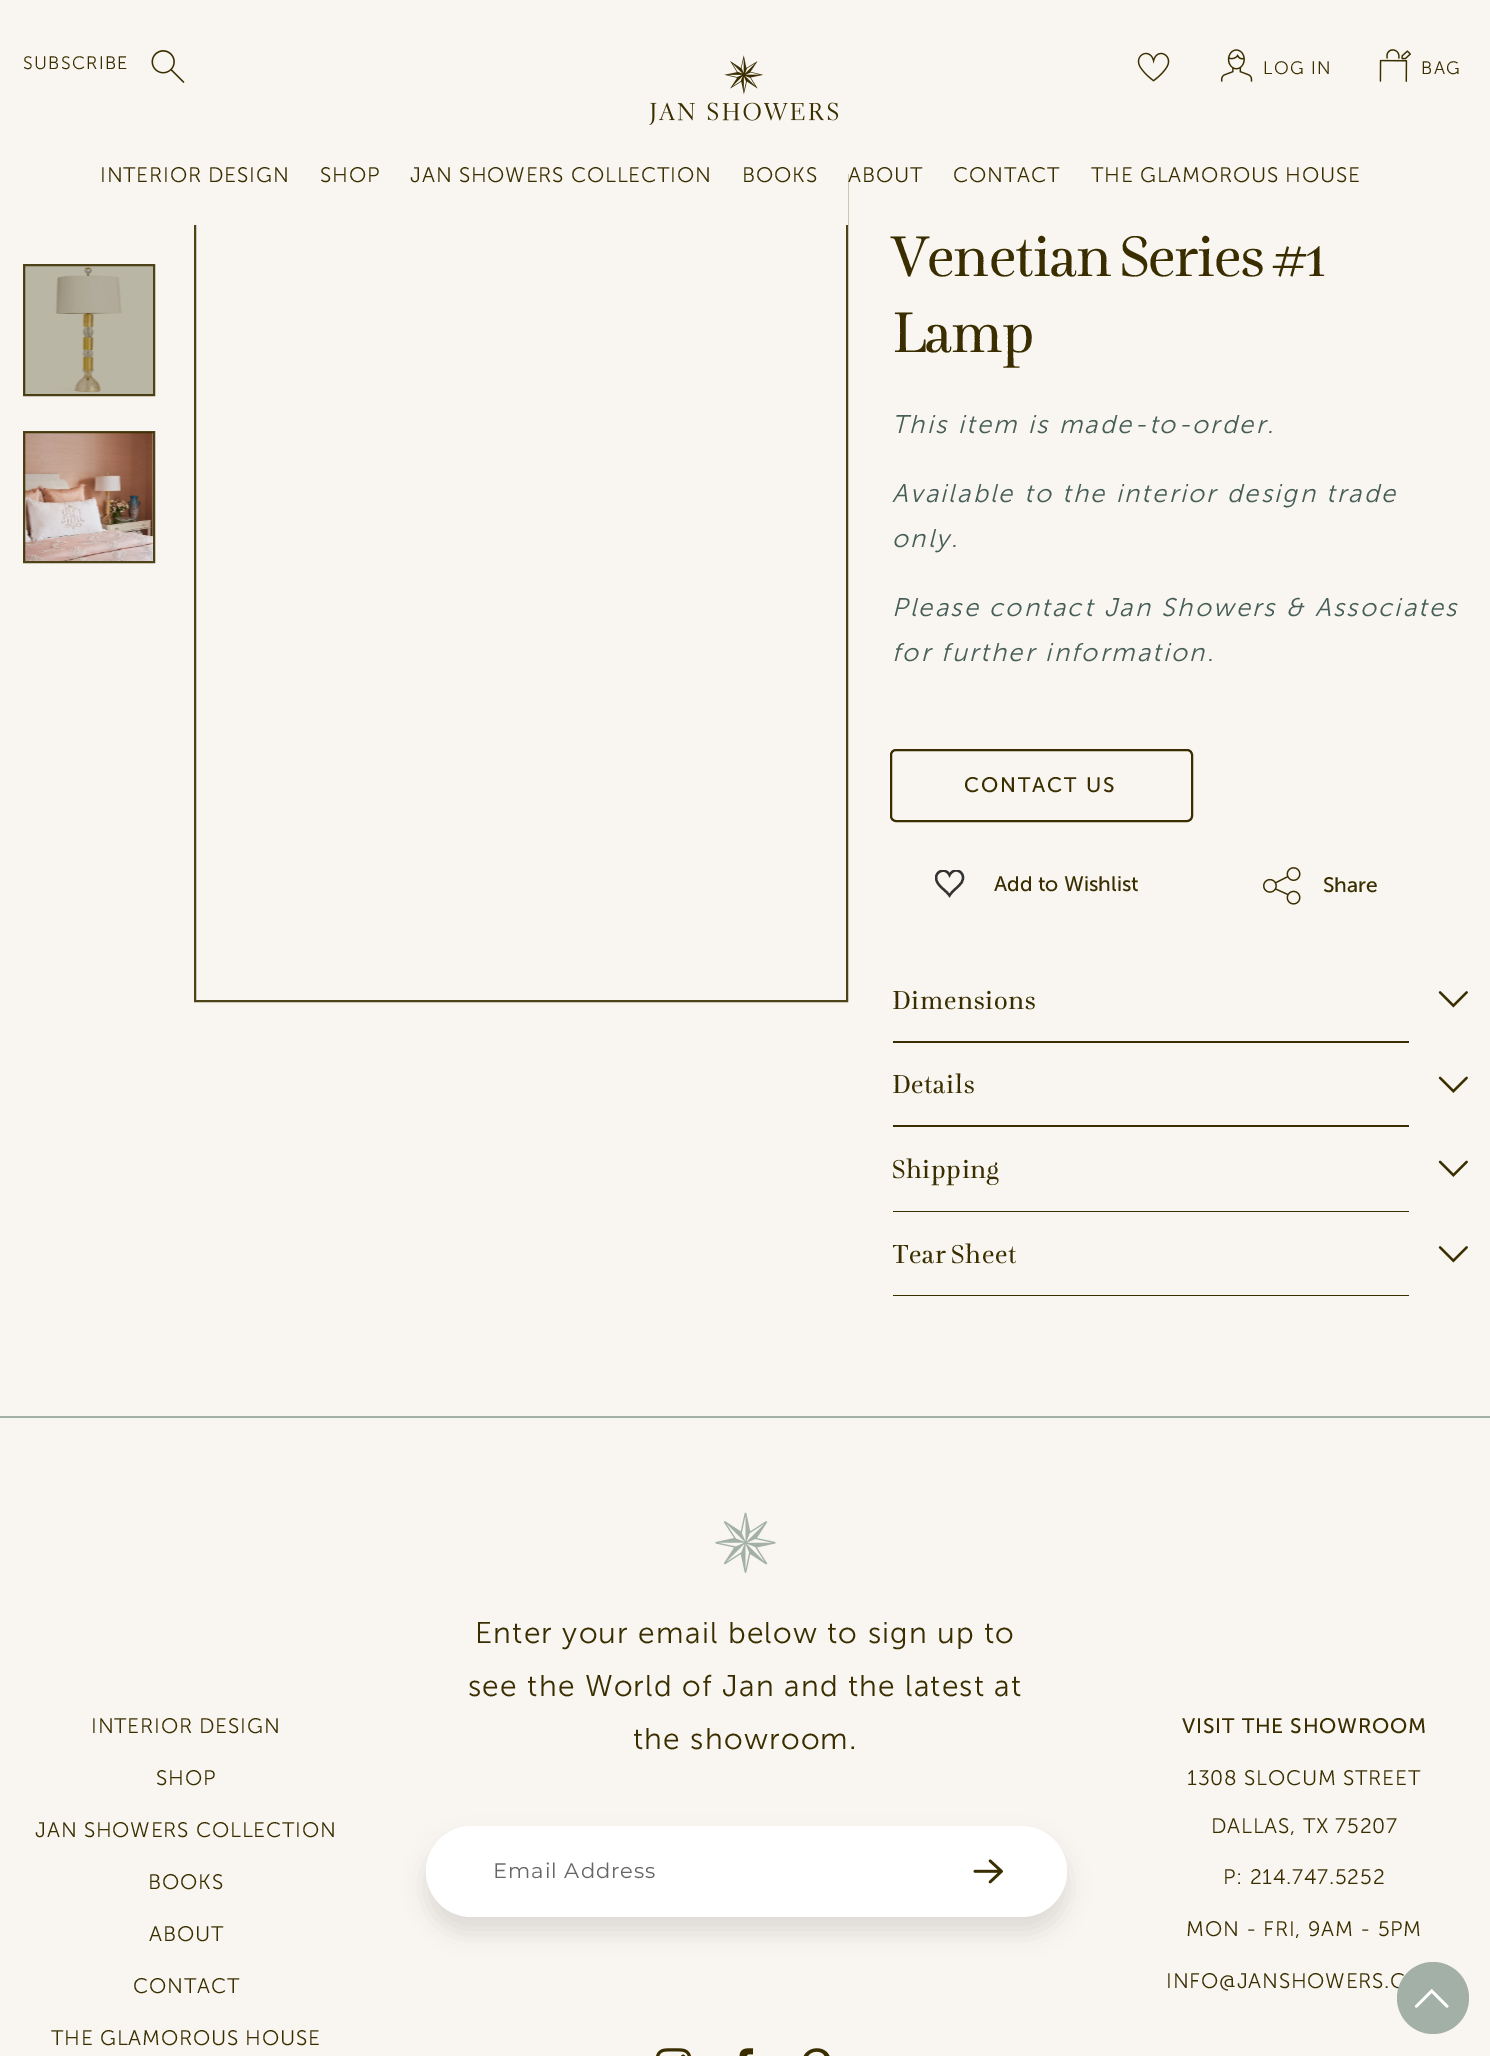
%!PS
<< /PageSize [1490 2056] /PageUsesTransparency true >> setpagedevice
/rgb { dup -16 bitshift 255 div exch dup -8 bitshift 255 and 255 div exch 255 and 255 div setrgbcolor } def
/font { [ exch dup neg 0 0 3 -1 roll 0 0 ] selectfont } def
/text { moveto show } def
/alpha { dup .setfillconstantalpha .setstrokeconstantalpha } def
/circle { newpath 0 360 arc closepath } def
/roundrect { 5 dict begin { /r /h /w /y /x } { exch def } forall
  x r add y moveto x w add y 2 copy h add r arct x w add y h add x 1 index r arct
  x y h add x y r arct x y 2 copy exch w add exch r arct closepath end } def
/shadow { 12 dict begin { /a /b /q /h /w /y /x } { exch def } forall gsave /was 0 def
  9 -2 -9 { dup b mul 4 div /e exch def 1 sub .425 mul 2.718 exch exp 1 add a .99 .min exch div /now exch def
    1 1 now sub 1 was sub div sub alpha /was now def
    w h .min e 2 mul add 0 gt { x e sub y e sub w e 2 mul add h e 2 mul add
      q e add b .6 mul add w h .min 2 div e add .min 0 .max roundrect fill } if } for grestore end } def
/picture { 5 dict begin { /h /w /y /x /name } { exch def } forall
  gsave x y translate w h scale
  w h 8 [w 0 0 h 0 0] name (r) file false 3 colorimage grestore end } def
0 .pushpdf14devicefilter
0 2056 translate 1 -1 scale
4 setmiterlimit
/s1 { /MuseoSans-Regular 21 font 16#3A2E00 rgb } def
16#F9F6F1 rgb
0 0 1490 2056 rectfill
16#4D4218 rgb
2 setlinewidth
195 175 652 826 rectstroke
16#F9F6F1 rgb
194 174 654 51 rectfill
(pic1.raw) 649 55 190 70 picture
/MuseoSans-Light 18 font
16#3A2E00 rgb
23 69 moveto 1.25 0 (SUBSCRIBE) ashow
/MuseoSans-Light 21 font
100 182 moveto 0.8 0 (INTERIOR DESIGN) ashow
320 182 moveto 0.8 0 (SHOP) ashow
410 182 moveto 0.8 0 (JAN SHOWERS COLLECTION) ashow
742 182 moveto 0.8 0 (BOOKS) ashow
848 182 moveto 0.8 0 (ABOUT) ashow
953 182 moveto 0.8 0 (CONTACT) ashow
1091 182 moveto 0.8 0 (THE GLAMOROUS HOUSE) ashow
(pic2.raw) 151 50 34 33 picture
(pic3.raw) 1137 52 33 30 picture
(pic4.raw) 1220 49 33 33 picture
/MuseoSans-Light 18 font
1263 74 moveto 1.25 0 (LOG IN) ashow
(pic5.raw) 1379 49 32 33 picture
1421 74 moveto 1.25 0 (BAG) ashow
(pic6.raw) 24 265 129 130 picture
0.9 alpha
24 265 130 130 rectstroke
0.35 alpha
24 266 129 129 rectfill
1 alpha
(pic7.raw) 23 432 131 129 picture
0.9 alpha
24 432 130 130 rectstroke
/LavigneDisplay-Regular 63 font
1 alpha
892 276 moveto -1.25 0 (Venetian Series #1) ashow
892 352 moveto -1.25 0 (Lamp) ashow
/MuseoSans-LightItalic 25.5 font
16#465D58 rgb
892 433 moveto 2.3 0 (This item is made-to-order.) ashow
892 502 moveto 2.3 0 (Available to the interior design trade) ashow
892 547 moveto 2.3 0 (only.) ashow
892 616 moveto 2.3 0 (Please contact Jan Showers & Associates) ashow
892 661 moveto 2.3 0 (for further information.) ashow
16#3A2E00 rgb
891 750 301 71 5 roundrect stroke
/MuseoSans-Regular 21 font
964 792 moveto 1.9 0 (CONTACT US) ashow
gsave
935 870 30 29 rectclip
16#333333 rgb
2.3 setlinewidth
956 870.5 moveto 953 870.5 950.5 873 949.5 875 curveto 945 865.5 931.5 873 937.5 882.5 curveto 940 887.5 946 890.5 949.5 895.5 curveto 954.5 887.5 963 885.5 963 877.5 curveto 963 873.5 960 870.5 956 870.5 curveto closepath stroke
grestore
(Add to Wishlist) 994 891 text
(pic8.raw) 1263 867 38 38 picture
(Share) 1323 892 text
/LavigneDisplay-Regular 28.5 font
892 1009 moveto 0.5 0 (Dimensions) ashow
(pic9.raw) 1438 991 30 17 picture
893 1041 516 2 rectfill
892 1093 moveto 0.5 0 (Details) ashow
(pic10.raw) 1438 1076 30 17 picture
893 1125 516 2 rectfill
892 1178 moveto 0.5 0 (Shipping) ashow
(pic10.raw) 1438 1160 30 17 picture
893 1211 516 1 rectfill
gsave
893 1212 576 84 rectclip
892 1263 moveto 0.5 0 (Tear Sheet) ashow
grestore
(pic9.raw) 1438 1246 30 17 picture
893 1295 516 1 rectfill
16#A3B0A8 rgb
0 1416 1490 2 rectfill
/MuseoSans-Light 21 font
16#3A2E00 rgb
91 1733 moveto 0.8 0 (INTERIOR DESIGN) ashow
156 1785 moveto 0.8 0 (SHOP) ashow
35 1837 moveto 0.8 0 (JAN SHOWERS COLLECTION) ashow
148 1889 moveto 0.8 0 (BOOKS) ashow
149 1941 moveto 0.8 0 (ABOUT) ashow
133 1993 moveto 0.8 0 (CONTACT) ashow
51 2045 moveto 0.8 0 (THE GLAMOROUS HOUSE) ashow
(pic11.raw) 715 1512 61 61 picture
/MuseoSans-Light 30 font
475 1643 moveto 1.2 0 (Enter your email below to sign up to) ashow
468 1696 moveto 1.2 0 (see the World of Jan and the latest at) ashow
633 1749 moveto 1.2 0 (the showroom.) ashow
16#000000 rgb
425 1839 643 95 47.5 11 0.1 shadow
16#FFFFFF rgb
426 1826 641 91 45.5 roundrect fill
/Montserrat-Regular 21 font
16#666666 rgb
493 1878 moveto 1 0 (Email Address) ashow
(pic12.raw) 973 1859 30 25 picture
/MuseoSans-Regular 21 font
16#3A2E00 rgb
1182 1733 moveto 0.8 0 (VISIT THE SHOWROOM) ashow
/MuseoSans-Light 21 font
1187 1785 moveto 0.8 0 (1308 SLOCUM STREET) ashow
1211 1833 moveto 0.8 0 (DALLAS, TX 75207) ashow
1223 1884 moveto 0.8 0 (P: 214.747.5252) ashow
1186 1936 moveto 0.8 0 (MON - FRI, 9AM - 5PM) ashow
1166 1988 moveto 0.8 0 (INFO@JANSHOWERS.C) ashow
(pic13.raw) 656 2048 35 8 picture
(pic14.raw) 739 2048 15 8 picture
(pic15.raw) 803 2048 27 8 picture
16#A3B0A8 rgb
1433 1998 36 circle fill
(pic16.raw) 1414 1989 35 19 picture
.poppdf14devicefilter showpage
